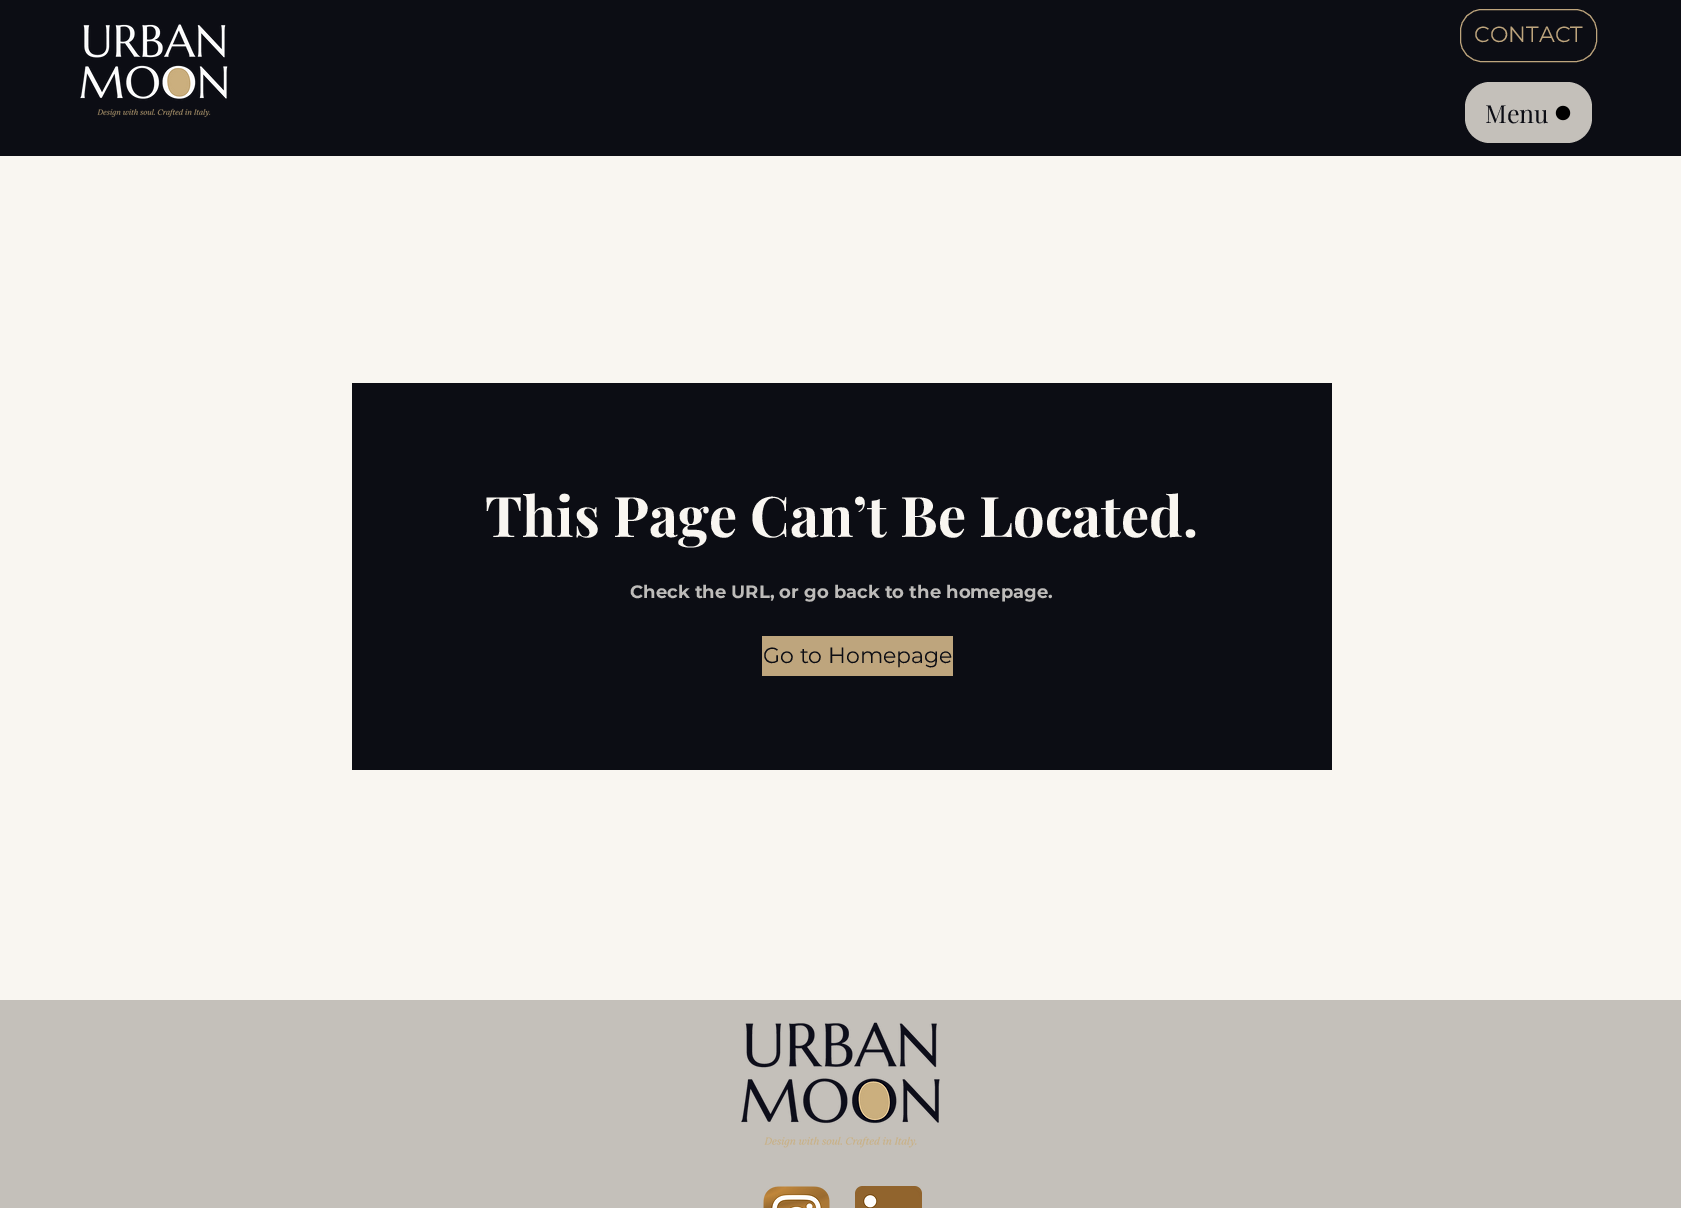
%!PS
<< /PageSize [1681 1208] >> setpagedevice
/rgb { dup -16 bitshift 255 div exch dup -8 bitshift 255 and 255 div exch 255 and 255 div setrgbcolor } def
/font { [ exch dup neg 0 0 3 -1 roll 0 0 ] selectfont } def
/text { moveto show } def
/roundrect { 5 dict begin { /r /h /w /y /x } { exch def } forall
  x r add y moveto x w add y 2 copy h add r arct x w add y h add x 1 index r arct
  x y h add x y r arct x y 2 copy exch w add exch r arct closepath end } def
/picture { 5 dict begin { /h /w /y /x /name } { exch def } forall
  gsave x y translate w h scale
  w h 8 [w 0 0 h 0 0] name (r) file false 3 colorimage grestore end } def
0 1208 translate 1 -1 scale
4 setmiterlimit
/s1 { /Montserrat-Regular 22 font 16#BEA57D rgb } def
/s2 { /PlayfairDisplay-Regular 25 font 16#0C0D14 rgb } def
/s3 { /PlayfairDisplay-Bold 56 font 16#F9F6F1 rgb } def
/s4 { /Montserrat-Bold 18 font 16#BEBCBA rgb } def
/s5 { /Montserrat-Regular 22 font 16#0C0D14 rgb } def
16#F9F6F1 rgb
0 0 1681 1208 rectfill
16#0C0D14 rgb
0 0 1681 156 rectfill
(pic1.raw) 80 24 148 94 picture
16#BEA57D rgb
1460.5 9.5 136 52 21.5 roundrect stroke
s1
(CONTACT) 1474 42 text
16#C4C0BA rgb
1465 82 127 61 25 roundrect fill
s2
(Menu) 1485 123 text
(pic2.raw) 1555 105 16 16 picture
352 383 980 387 rectfill
s3
(This Page Can’t Be Located.) 485 537 text
s4
(Check the URL, or go back to the homepage.) 630 598 text
16#BEA57D rgb
762 636 191 40 rectfill
s5
(Go to Homepage) 763 663 text
16#C4C0BA rgb
0 1000 1681 208 rectfill
(pic3.raw) 741 1022 199 126 picture
(pic4.raw) 763 1186 67 22 picture
(pic5.raw) 855 1186 67 22 picture
showpage
